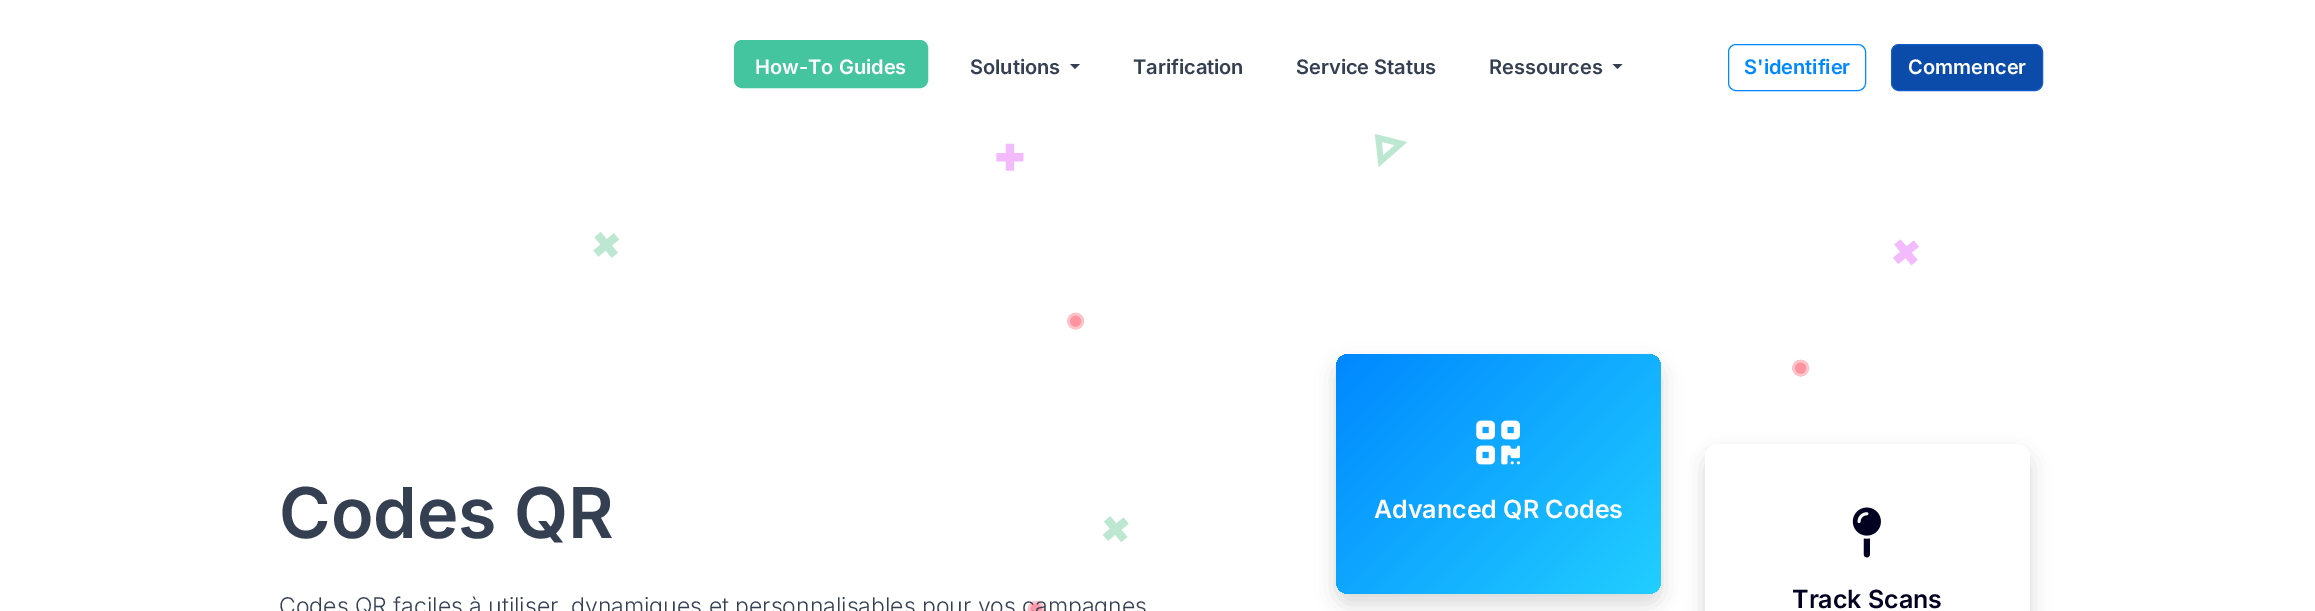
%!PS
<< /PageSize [2315 611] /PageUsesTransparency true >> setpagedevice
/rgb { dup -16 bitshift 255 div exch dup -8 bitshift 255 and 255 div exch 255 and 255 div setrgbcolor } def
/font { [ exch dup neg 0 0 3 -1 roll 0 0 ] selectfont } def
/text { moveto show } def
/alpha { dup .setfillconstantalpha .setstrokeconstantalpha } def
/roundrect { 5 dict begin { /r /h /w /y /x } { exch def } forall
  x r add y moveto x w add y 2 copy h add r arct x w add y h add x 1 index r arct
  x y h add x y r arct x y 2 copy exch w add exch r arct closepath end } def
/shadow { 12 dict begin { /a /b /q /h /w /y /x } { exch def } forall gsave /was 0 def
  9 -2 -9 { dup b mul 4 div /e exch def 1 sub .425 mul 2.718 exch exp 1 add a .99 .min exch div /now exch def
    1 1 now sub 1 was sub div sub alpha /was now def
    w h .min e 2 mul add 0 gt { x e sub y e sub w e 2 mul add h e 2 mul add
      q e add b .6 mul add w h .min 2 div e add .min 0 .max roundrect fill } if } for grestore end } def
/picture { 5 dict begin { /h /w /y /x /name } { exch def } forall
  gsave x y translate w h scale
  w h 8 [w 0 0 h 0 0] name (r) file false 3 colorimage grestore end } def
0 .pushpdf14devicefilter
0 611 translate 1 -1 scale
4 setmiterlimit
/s1 { /Inter-SemiBold 20 font 16#FFFFFF rgb } def
/s2 { /Inter-SemiBold 20 font 16#343F52 rgb } def
/s3 { /Inter-SemiBold 20 font 16#0088FF rgb } def
/s4 { /Inter-SemiBold 70 font 16#343F52 rgb } def
/s5 { /Inter-Light 23 font 16#343F52 rgb } def
/s6 { /Inter-SemiBold 25 font 16#FFFFFF rgb } def
/s7 { /Inter-SemiBold 25 font 16#030122 rgb } def
16#FFFFFF rgb
0 0 2315 611 rectfill
16#45C4A0 rgb
734.5 40.5 193 47 7.5 roundrect gsave fill grestore
stroke
s1
(How-To Guides) 755 74 text
s2
(Solutions) 970 74 text
1070 64 moveto 1080 64 lineto 1075 69 lineto closepath fill
(Tarification) 1133 74 text
(Service Status) 1296 74 text
(Ressources) 1489 74 text
1612.5 64 moveto 1622.5 64 lineto 1617.5 69 lineto closepath fill
16#0088FF rgb
1728.5 44.5 137 46 7.5 roundrect stroke
(S'identifier) 1744 74 text
16#0B4BA9 rgb
1891.5 44.5 151 46 7.5 roundrect gsave fill grestore
16#105CCB rgb
stroke
s1
(Commencer) 1908 74 text
(pic1.raw) 593 134 1326 477 picture
s4
(Codes QR) 279 538 text
s5
(Codes QR faciles à utiliser, dynamiques et personnalisables pour vos campagnes) 279 614 text
16#000000 rgb
1336 364 325 240 13 10 0.15 shadow
gsave 1336 354 325 240 13 roundrect clip newpath
<< /ShadingType 2 /ColorSpace /DeviceRGB /Coords [1358 333 1640 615] /Extend [true true] /Function << /FunctionType 2 /Domain [0 1] /C0 [0 0.533 1] /C1 [0.133 0.812 1] /N 1 >> >> shfill grestore
(pic2.raw) 1476 420 44 45 picture
s6
(Advanced QR Codes) 1374 518 text
16#000000 rgb
1705 454 325 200 13 10 0.15 shadow
16#FFFFFF rgb
1705 444 325 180 13 roundrect fill
(pic3.raw) 1852 507 29 51 picture
s7
(Track Scans) 1792 608 text
.poppdf14devicefilter showpage
